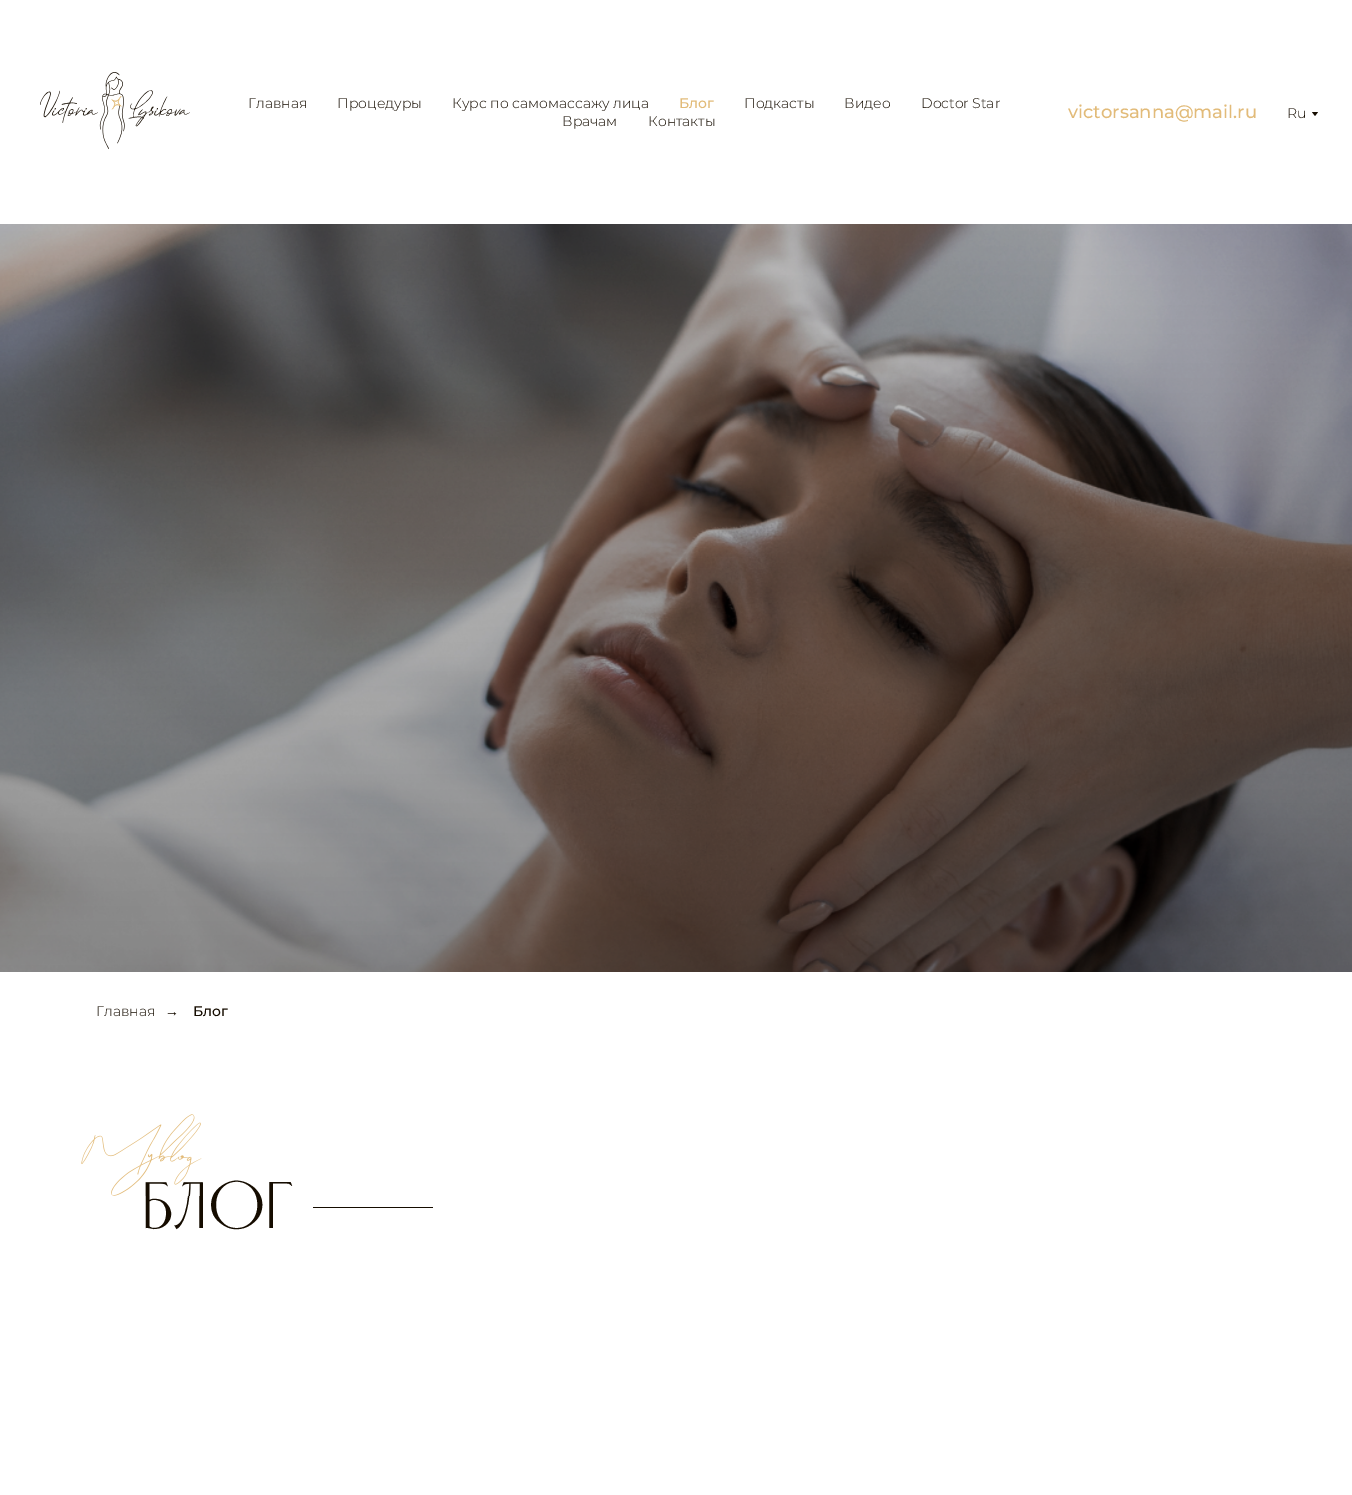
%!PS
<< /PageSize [1352 1495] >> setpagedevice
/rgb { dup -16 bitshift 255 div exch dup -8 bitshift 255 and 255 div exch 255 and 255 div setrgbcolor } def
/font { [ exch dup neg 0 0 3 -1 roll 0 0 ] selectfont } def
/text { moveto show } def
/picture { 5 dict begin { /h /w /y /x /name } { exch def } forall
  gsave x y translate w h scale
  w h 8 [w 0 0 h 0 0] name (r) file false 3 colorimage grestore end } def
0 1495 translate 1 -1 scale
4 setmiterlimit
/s1 { /Montserrat-Light 14 font 16#150C00 rgb } def
/s2 { /Montserrat-Medium 14 font 16#E2BB79 rgb } def
/s3 { /Montserrat-Medium 18 font 16#E2BB79 rgb } def
/s4 { /LiberationSerif-Regular 14 font 16#150C00 rgb } def
/s5 { /Montserrat-Medium 14 font 16#150C00 rgb } def
/s6 { /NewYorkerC-Regular 60 font 16#150C00 rgb } def
16#FFFFFF rgb
0 0 1352 1495 rectfill
(pic1.raw) 40 72 150 77 picture
s1
(Главная) 248 108 text
(Процедуры) 337 108 text
(Курс по самомассажу лица) 452 108 text
s2
(Блог) 679 108 text
s1
(Подкасты) 744 108 text
(Видео) 844 108 text
(Doctor Star) 921 108 text
(Врачам) 562 126 text
(Контакты) 648 126 text
s3
(victorsanna@mail.ru) 1068 118 text
s1
(Ru) 1287 118 text
1312 112 moveto 1318 112 lineto 1315 116 lineto closepath fill
(pic2.raw) 0 224 1352 748 picture
(Главная) 96 1016 text
s4
(→) 165 1016 text
s5
(Блог) 193 1016 text
s6
(Блог) 141 1228 text
(pic3.raw) 81 1114 121 82 picture
313 1207 120 1 rectfill
showpage
